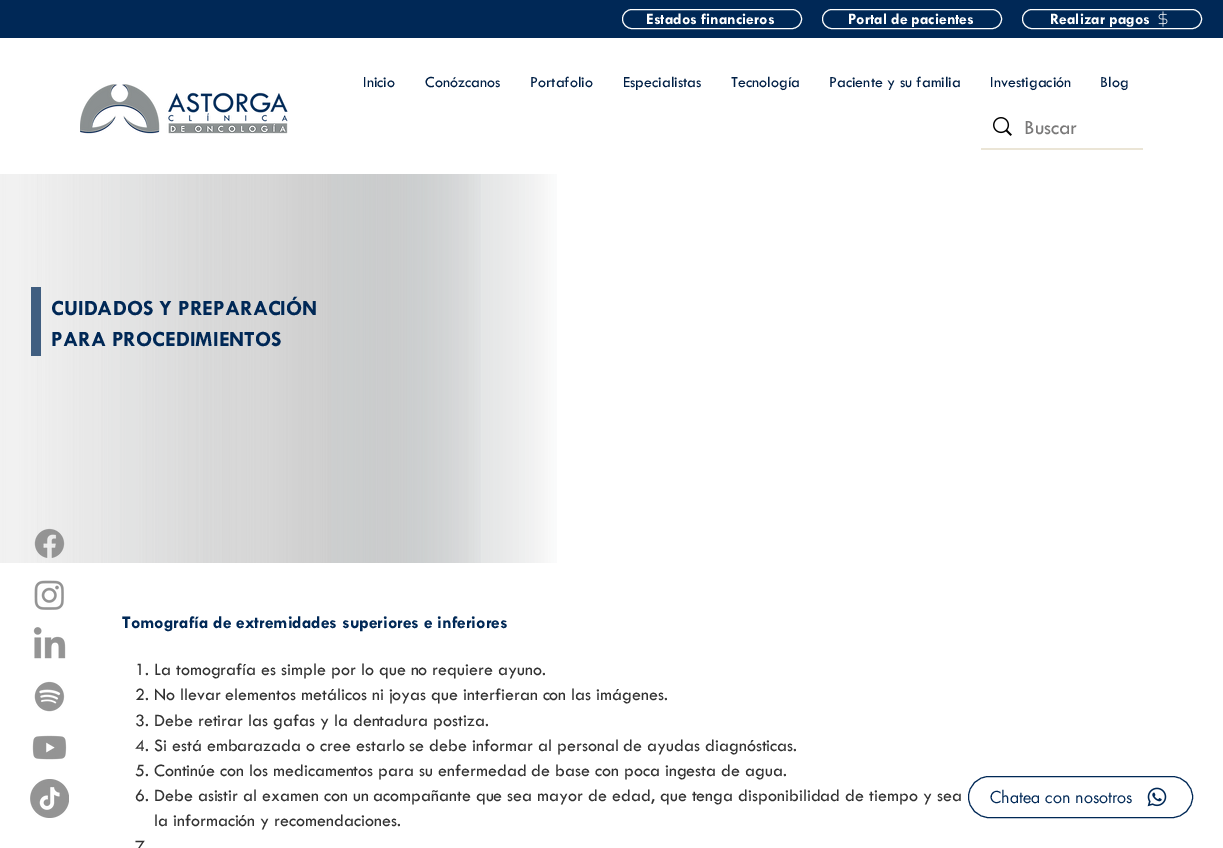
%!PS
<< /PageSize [1223 848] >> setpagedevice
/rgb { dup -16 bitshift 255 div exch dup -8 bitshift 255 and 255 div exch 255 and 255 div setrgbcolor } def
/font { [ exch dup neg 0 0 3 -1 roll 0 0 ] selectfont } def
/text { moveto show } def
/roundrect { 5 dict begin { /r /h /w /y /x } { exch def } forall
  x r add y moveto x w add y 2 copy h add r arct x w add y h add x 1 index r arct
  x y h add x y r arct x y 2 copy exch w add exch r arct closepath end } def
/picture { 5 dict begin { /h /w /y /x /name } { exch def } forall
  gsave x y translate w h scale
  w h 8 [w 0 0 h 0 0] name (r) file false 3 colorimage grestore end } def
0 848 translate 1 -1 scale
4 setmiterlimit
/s1 { /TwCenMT-Bold 16 font 16#FFFFFF rgb } def
/s2 { /TwCenMT-Regular 16 font 16#001F45 rgb } def
/s3 { /TwCenMT-Regular 21 font 16#7A7979 rgb } def
/s4 { /TwCenMT-Bold 22 font 16#002856 rgb } def
/s5 { /TwCenMT-Bold 18 font 16#002856 rgb } def
/s6 { /TwCenMT-Regular 18 font 16#323232 rgb } def
/s7 { /futura-Regular 16 font 16#002856 rgb } def
16#FFFFFF rgb
0 0 1223 848 rectfill
16#002856 rgb
0 0 1223 38 rectfill
16#FFFFFF rgb
622.5 9.5 179 19 9.5 roundrect stroke
s1
(Estados financieros) 646 24 text
822.5 9.5 179 19 9.5 roundrect stroke
(Portal de pacientes) 848 24 text
1022.5 9.5 179 19 9.5 roundrect stroke
(Realizar pagos) 1050 24 text
(pic1.raw) 1158 11 10 16 picture
(pic2.raw) 80 84 208 50 picture
s2
(Inicio) 363 87 text
(Conózcanos) 425 87 text
(Portafolio) 530 87 text
(Especialistas) 623 87 text
(Tecnología) 731 87 text
(Paciente y su familia) 829 87 text
(Investigación) 990 87 text
(Blog) 1100 87 text
16#EBE5D6 rgb
981 148 162 2 rectfill
(pic3.raw) 993 117 19 19 picture
s3
(Buscar) 1024 134 text
(pic10.raw) 0 174 557 389 picture
(pic11.raw) 0 174 253 389 picture
(pic12.raw) 0 174 481 389 picture
(pic4.raw) 34 528 31 30 picture
(pic5.raw) 34 580 30 30 picture
(pic6.raw) 33 627 33 32 picture
(pic7.raw) 34 681 31 31 picture
(pic8.raw) 32 735 35 25 picture
(pic9.raw) 30 779 39 39 picture
16#405E80 rgb
31 287 10 69 rectfill
s4
(CUIDADOS Y PREPARACIÓN) 51 315 text
(PARA PROCEDIMIENTOS) 51 346 text
s5
(Tomografía de extremidades superiores e inferiores) 122 628 text
s6
(1. La tomografía es simple por lo que no requiere ayuno.) 135 675 text
(2. No llevar elementos metálicos ni joyas que interfieran con las imágenes.) 135 700 text
(3. Debe retirar las gafas y la dentadura postiza.) 135 726 text
(4. Si está embarazada o cree estarlo se debe informar al personal de ayudas diagnósticas.) 135 751 text
(5. Continúe con los medicamentos para su enfermedad de base con poca ingesta de agua.) 135 776 text
(6. Debe asistir al examen con un acompañante que sea mayor de edad, que tenga disponibilidad de tiempo y sea) 135 801 text
(la información y recomendaciones.) 154 826 text
(7) 135 852 text
16#002856 rgb
968.5 776.5 224 41 20.5 roundrect stroke
s7
(Chatea con nosotros) 990 803 text
(pic13.raw) 1147 787 20 20 picture
showpage
